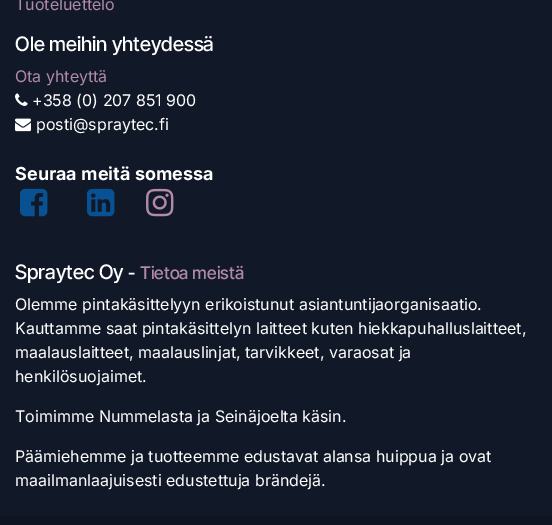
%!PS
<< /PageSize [552 525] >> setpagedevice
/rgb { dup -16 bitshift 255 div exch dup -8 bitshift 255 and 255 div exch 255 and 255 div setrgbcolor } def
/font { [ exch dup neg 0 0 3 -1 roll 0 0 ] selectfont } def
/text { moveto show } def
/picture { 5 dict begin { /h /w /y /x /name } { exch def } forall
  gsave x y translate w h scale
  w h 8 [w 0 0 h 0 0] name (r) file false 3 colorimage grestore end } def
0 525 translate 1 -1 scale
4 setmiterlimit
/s1 { /Inter-Regular 16 font 16#B18AA7 rgb } def
/s2 { /InterTight-Medium 20 font 16#FFFFFF rgb } def
/s3 { /Inter-Regular 16 font 16#FFFFFF rgb } def
/s4 { /Inter-Bold 18 font 16#FFFFFF rgb } def
/s5 { /InterTight-Medium 17.5 font 16#FFFFFF rgb } def
/s6 { /InterTight-Medium 17.5 font 16#B18AA7 rgb } def
16#111827 rgb
0 0 552 525 rectfill
s1
(Tuoteluettelo) 15 10 text
s2
(Ole meihin yhteydessä) 15 51 text
s1
(Ota yhteyttä) 15 82 text
(pic1.raw) 15 93 13 13 picture
s3
(+358 \(0\) 207 851 900) 32 106 text
(pic2.raw) 15 118 16 14 picture
(posti@spraytec.fi) 36 130 text
s4
(Seuraa meitä somessa) 15 180 text
(pic3.raw) 20 188 28 29 picture
(pic4.raw) 87 188 28 29 picture
(pic5.raw) 146 188 28 29 picture
s2
(Spraytec Oy) 15 279 text
s5
(-) 128 279 text
s6
(Tietoa meistä) 140 279 text
s3
(Olemme pintakäsittelyyn erikoistunut asiantuntijaorganisaatio.) 15 310 text
(Kauttamme saat pintakäsittelyn laitteet kuten hiekkapuhalluslaitteet,) 15 334 text
(maalauslaitteet, maalauslinjat, tarvikkeet, varaosat ja) 15 358 text
(henkilösuojaimet.) 15 382 text
(Toimimme Nummelasta ja Seinäjoelta käsin.) 15 422 text
(Päämiehemme ja tuotteemme edustavat alansa huippua ja ovat) 15 462 text
(maailmanlaajuisesti edustettuja brändejä.) 15 486 text
16#0E1421 rgb
0 516 552 9 rectfill
showpage
